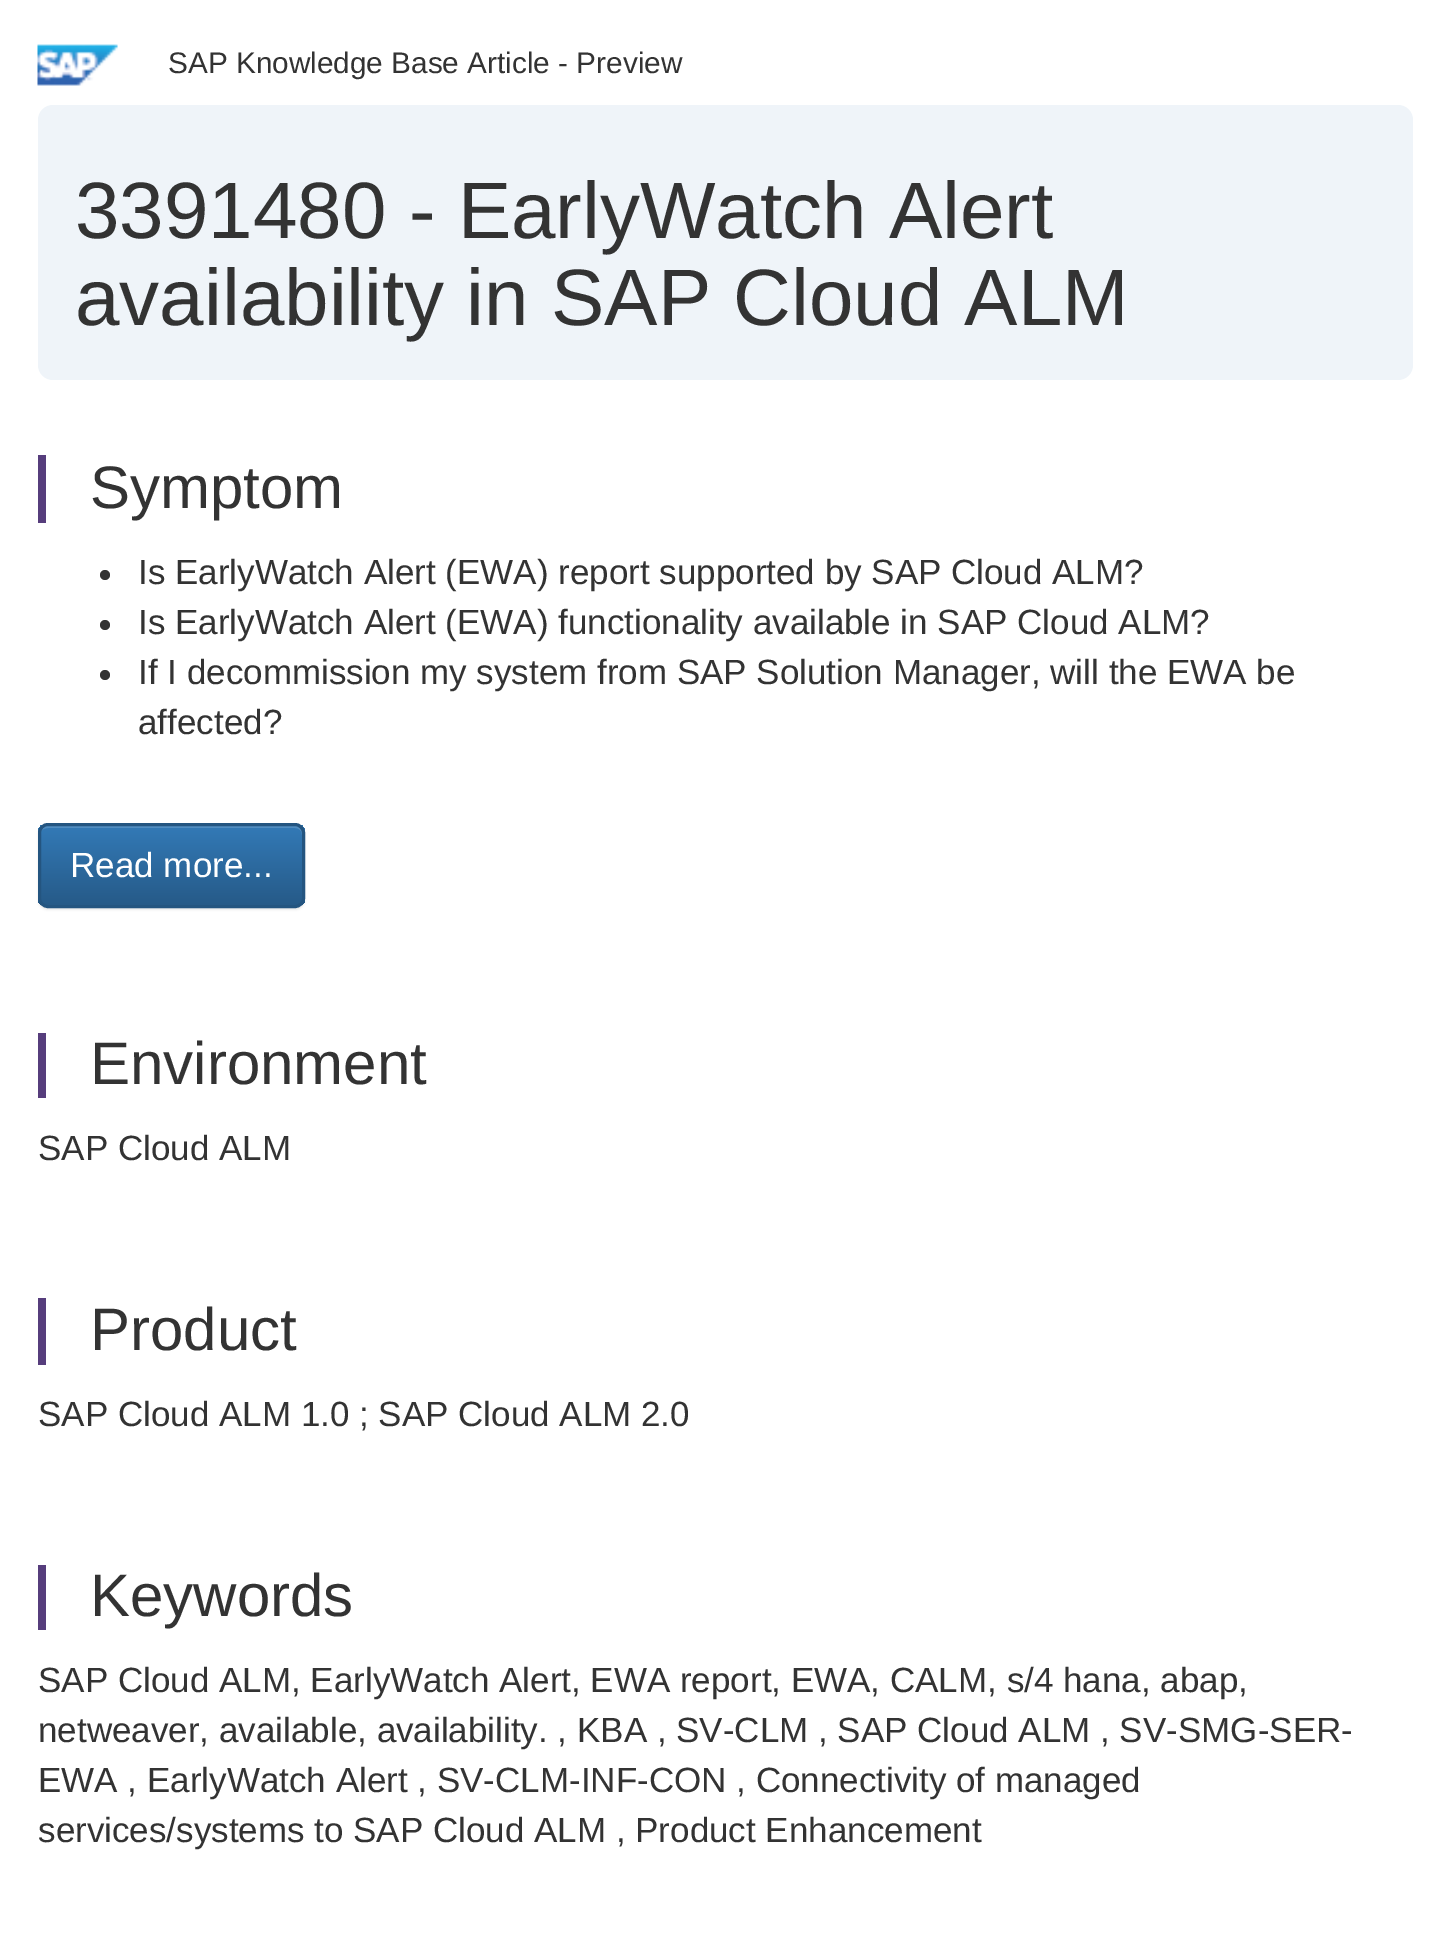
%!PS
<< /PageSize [1450 1936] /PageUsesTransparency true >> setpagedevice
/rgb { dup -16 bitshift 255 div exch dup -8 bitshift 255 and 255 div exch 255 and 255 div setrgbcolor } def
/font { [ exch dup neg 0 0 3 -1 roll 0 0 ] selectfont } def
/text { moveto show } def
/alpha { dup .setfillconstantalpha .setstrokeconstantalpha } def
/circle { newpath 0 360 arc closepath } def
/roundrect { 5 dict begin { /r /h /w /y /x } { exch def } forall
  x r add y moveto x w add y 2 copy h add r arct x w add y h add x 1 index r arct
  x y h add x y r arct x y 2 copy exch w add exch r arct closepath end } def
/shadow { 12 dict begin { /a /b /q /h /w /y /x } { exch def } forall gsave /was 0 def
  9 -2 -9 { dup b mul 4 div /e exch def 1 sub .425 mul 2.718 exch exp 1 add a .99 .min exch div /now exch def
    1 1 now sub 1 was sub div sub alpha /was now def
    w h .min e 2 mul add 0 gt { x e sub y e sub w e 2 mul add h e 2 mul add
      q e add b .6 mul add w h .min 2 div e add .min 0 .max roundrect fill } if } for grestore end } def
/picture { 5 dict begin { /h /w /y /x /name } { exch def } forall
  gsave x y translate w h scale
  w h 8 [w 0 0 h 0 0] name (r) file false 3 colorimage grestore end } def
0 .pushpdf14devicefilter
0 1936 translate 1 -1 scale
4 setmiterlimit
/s1 { /LiberationSans-Regular 29.75 font 16#333333 rgb } def
/s2 { /LiberationSans-Regular 80 font 16#333333 rgb } def
/s3 { /LiberationSans-Regular 60 font 16#333333 rgb } def
/s4 { /LiberationSans-Regular 35 font 16#333333 rgb } def
/s5 { /LiberationSans-Regular 35 font 16#FFFFFF rgb } def
16#FFFFFF rgb
0 0 1450 1936 rectfill
(pic1.raw) 37 44 81 42 picture
s1
(SAP Knowledge Base Article - Preview) 168 73 text
16#EFF4F9 rgb
38 105 1375 275 15 roundrect fill
s2
(3391480 - EarlyWatch Alert) 75 238 text
(availability in SAP Cloud ALM) 75 325 text
16#563D7C rgb
38 455 8 68 rectfill
s3
(Symptom) 90 508 text
105 575 5 circle fill
s4
(Is EarlyWatch Alert \(EWA\) report supported by SAP Cloud ALM?) 138 584 text
105 625 5 circle fill
(Is EarlyWatch Alert \(EWA\) functionality available in SAP Cloud ALM?) 138 634 text
105 675 5 circle fill
(If I decommission my system from SAP Solution Manager, will the EWA be) 138 684 text
(affected?) 138 734 text
16#000000 rgb
38 825 267 85 10 1 0.07 shadow
gsave
38 823 267 85 10 roundrect clip newpath
gsave 38 825 moveto 305 825 lineto 305 905 lineto 38 905 lineto closepath clip newpath
<< /ShadingType 2 /ColorSpace /DeviceRGB /Coords [171 825 171 905] /Extend [true true] /Function << /FunctionType 2 /Domain [0 1] /C0 [0.2 0.478 0.718] /C1 [0.149 0.353 0.533] /N 1 >> >> shfill grestore
grestore
0.15 alpha
16#FFFFFF rgb
48 828 moveto 295 828 lineto 299 828 302 831 302 835 curveto 302 901 lineto 303 900 303 898 303 897 curveto 303 833 lineto 303 829 299 825 295 825 curveto 48 825 lineto 44 825 40 829 40 833 curveto 40 835 lineto 40 831 43 828 48 828 curveto closepath fill
1 alpha
16#245580 rgb
3 setlinewidth
39.5 824.5 264 82 8.5 roundrect stroke
s5
(Read more...) 70 877 text
16#563D7C rgb
38 1033 8 65 rectfill
s3
(Environment) 90 1084 text
s4
(SAP Cloud ALM) 38 1160 text
16#563D7C rgb
38 1298 8 67 rectfill
s3
(Product) 90 1350 text
s4
(SAP Cloud ALM 1.0 ; SAP Cloud ALM 2.0) 38 1426 text
16#563D7C rgb
38 1565 8 65 rectfill
s3
(Keywords) 90 1616 text
s4
(SAP Cloud ALM, EarlyWatch Alert, EWA report, EWA, CALM, s/4 hana, abap,) 38 1692 text
(netweaver, available, availability. , KBA , SV-CLM , SAP Cloud ALM , SV-SMG-SER-) 38 1742 text
(EWA , EarlyWatch Alert , SV-CLM-INF-CON , Connectivity of managed) 38 1792 text
(services/systems to SAP Cloud ALM , Product Enhancement) 38 1842 text
.poppdf14devicefilter showpage
